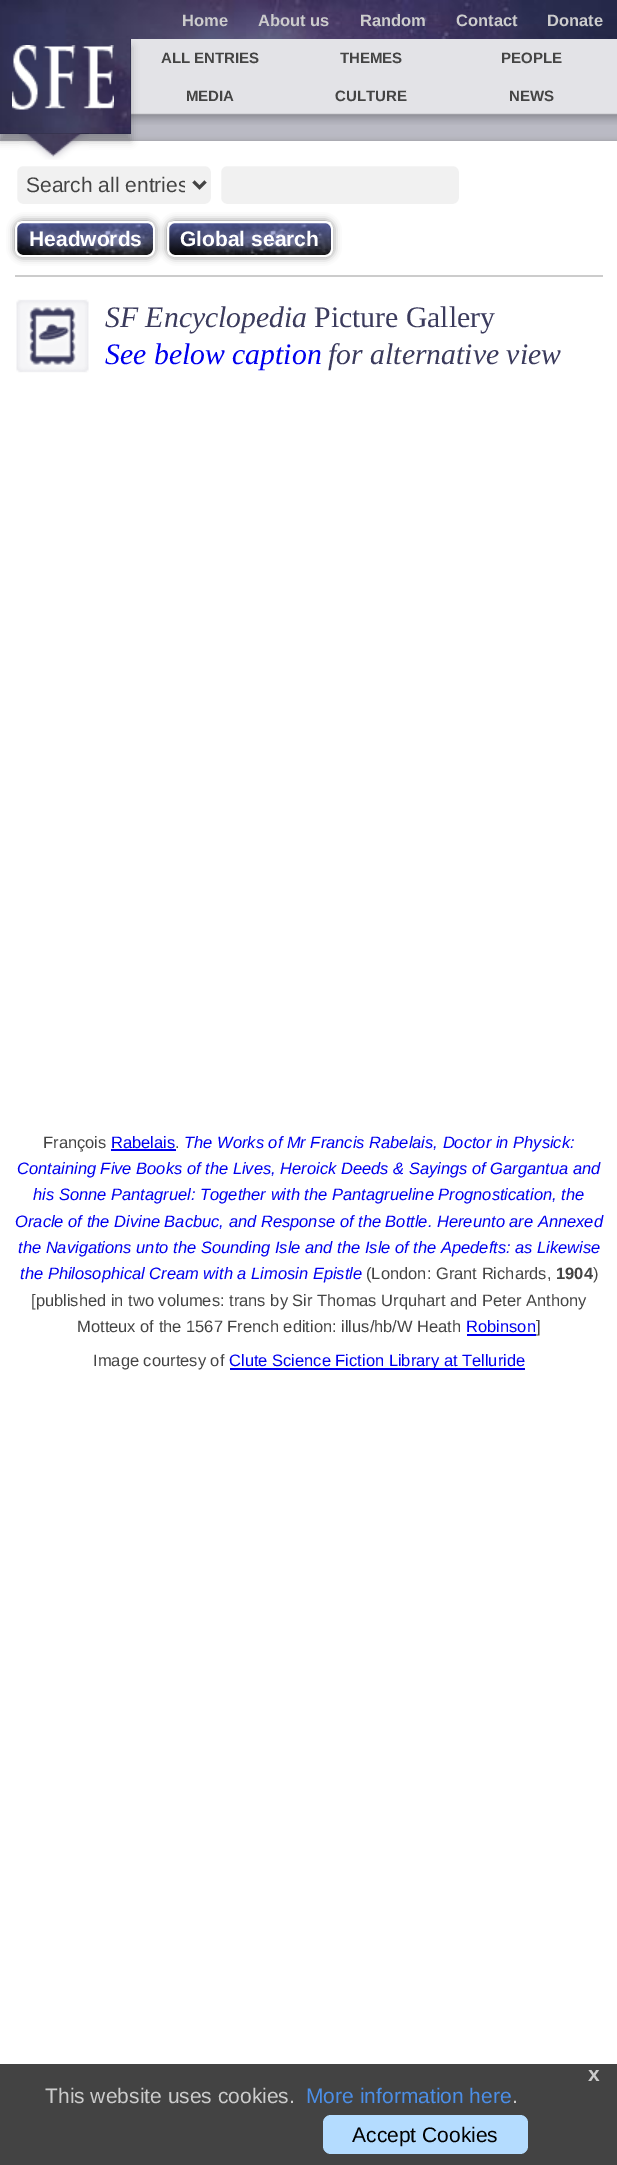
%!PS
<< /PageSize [617 2165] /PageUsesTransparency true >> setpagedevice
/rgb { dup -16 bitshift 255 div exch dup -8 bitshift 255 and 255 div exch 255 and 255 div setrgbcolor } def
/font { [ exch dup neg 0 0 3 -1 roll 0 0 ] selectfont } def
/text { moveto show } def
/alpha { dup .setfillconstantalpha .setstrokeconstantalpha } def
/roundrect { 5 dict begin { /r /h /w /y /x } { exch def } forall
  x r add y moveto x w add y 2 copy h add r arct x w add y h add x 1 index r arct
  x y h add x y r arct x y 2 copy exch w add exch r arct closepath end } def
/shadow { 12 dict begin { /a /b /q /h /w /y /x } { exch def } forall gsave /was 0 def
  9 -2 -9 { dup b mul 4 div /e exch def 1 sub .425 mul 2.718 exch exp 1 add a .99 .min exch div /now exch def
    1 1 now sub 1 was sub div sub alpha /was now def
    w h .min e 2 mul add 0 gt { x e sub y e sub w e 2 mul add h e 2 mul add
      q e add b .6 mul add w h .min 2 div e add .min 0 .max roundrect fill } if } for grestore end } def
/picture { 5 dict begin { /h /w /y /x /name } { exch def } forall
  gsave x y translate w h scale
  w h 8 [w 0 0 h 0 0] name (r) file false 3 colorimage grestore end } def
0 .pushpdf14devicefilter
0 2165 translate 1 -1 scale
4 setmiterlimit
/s1 { /LiberationSans-Bold 16.5 font 16#CCCCCC rgb } def
/s2 { /LiberationSans-Bold 15 font 16#444444 rgb } def
/s3 { /LiberationSans-Regular 21 font 16#444444 rgb } def
/s4 { /LiberationSans-Bold 21 font 16#FFFFFF rgb } def
/s5 { /LiberationSerif-Italic 29.75 font 16#3B3B5D rgb } def
/s6 { /LiberationSerif-Regular 29.75 font 16#3B3B5D rgb } def
/s7 { /LiberationSerif-Italic 29.75 font 16#0000EE rgb } def
/s8 { /LiberationSans-Regular 16.5 font 16#444444 rgb } def
/s9 { /LiberationSans-Regular 16.5 font 16#0000EE rgb } def
/s10 { /LiberationSans-Italic 16.5 font 16#0000EE rgb } def
/s11 { /LiberationSans-Bold 16.5 font 16#444444 rgb } def
/s12 { /LiberationSans-Bold 21 font 16#CCCCCC rgb } def
/s13 { /LiberationSans-Regular 21 font 16#CCCCCC rgb } def
/s14 { /LiberationSans-Regular 21 font 16#4B8EE7 rgb } def
/s15 { /LiberationSans-Regular 21 font 16#000000 rgb } def
16#BABAC4 rgb
0 0 617 2165 rectfill
(pic1.raw) 0 0 617 39 picture
s1
(Home) 182 26 text
(About us) 258 26 text
(Random) 360 26 text
(Contact) 456 26 text
(Donate) 547 26 text
(pic2.raw) 131 39 486 86 picture
16#999999 rgb
0 141 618 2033 0 3 1 shadow
16#232640 rgb
0 39 131 95 rectfill
(pic3.raw) 0 39 131 95 picture
16#FFFFFF rgb
0 141 617 1923 rectfill
gsave
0 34 moveto 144 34 lineto 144 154 lineto 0 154 lineto closepath 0 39 moveto 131 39 lineto 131 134 lineto 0 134 lineto closepath eoclip newpath
16#000000 rgb
0 47 131 94 0 4 0.25 shadow
grestore
(pic4.raw) 12 45 102 65 picture
(pic5.raw) 19 133 70 27 picture
s2
(ALL ENTRIES) 161 63 text
(THEMES) 340 63 text
(PEOPLE) 501 63 text
(MEDIA) 186 101 text
(CULTURE) 335 101 text
(NEWS) 509 101 text
16#CCCCCC rgb
15 275 588 2 rectfill
16#F1F1F1 rgb
16 165 196 40 7 roundrect gsave fill grestore
16#FFFFFF rgb
2 setlinewidth
stroke
16#444444 rgb
3 setlinewidth
193.5 181.5 moveto 199.5 187.5 lineto 205.5 181.5 lineto stroke
gsave
26 171 159 27 rectclip
s3
(Search all entries) 26 192 text
grestore
16#F1F1F1 rgb
220 165 240 40 7 roundrect gsave fill grestore
16#FFFFFF rgb
2 setlinewidth
stroke
16#000000 rgb
15 221 140 36 8 4 0.5 shadow
(pic6.raw) 17 222 136 33 picture
16#FFFFFF rgb
16 222 138 34 7 roundrect stroke
s4
(Headwords) 29 246 text
16#000000 rgb
167 221 166 36 8 4 0.5 shadow
(pic7.raw) 168 222 163 33 picture
16#FFFFFF rgb
168 222 164 34 7 roundrect stroke
(Global search) 180 246 text
(pic8.raw) 16 299 73 74 picture
s5
(SF Encyclopedia) 105 327 text
s6
(Picture Gallery) 314 327 text
s7
(See below caption) 105 364 text
s5
(for alternative view) 328 364 text
s8
(François) 43 1148 text
s9
(Rabelais) 111 1148 text
111 1149 65 2 rectfill
s8
(.) 175 1148 text
s10
(The Works of Mr Francis Rabelais, Doctor in Physick:) 184 1148 text
(Containing Five Books of the Lives, Heroick Deeds & Sayings of Gargantua and) 17 1174 text
(his Sonne Pantagruel: Together with the Pantagrueline Prognostication, the) 33 1200 text
(Oracle of the Divine Bacbuc, and Response of the Bottle. Hereunto are Annexed) 15 1227 text
(the Navigations unto the Sounding Isle and the Isle of the Apedefts: as Likewise) 18 1253 text
(the Philosophical Cream with a Limosin Epistle) 20 1279 text
s8
(\(London: Grant Richards,) 366 1279 text
s11
(1904) 556 1279 text
s8
(\)) 593 1279 text
([published in two volumes: trans by Sir Thomas Urquhart and Peter Anthony) 31 1306 text
(Motteux of the 1567 French edition: illus/hb/W Heath) 77 1332 text
s9
(Robinson) 466 1332 text
467 1334 69 2 rectfill
s8
(]) 536 1332 text
(Image courtesy of) 93 1366 text
16#0000EE rgb
230 1368 295 2 rectfill
(Clute Science Fiction Library at Telluride) 229 1366 text
16#434343 rgb
0 2064 617 101 rectfill
s12
(x) 588 2081 text
s13
(This website uses cookies.) 45 2103 text
s14
(More information here) 306 2103 text
s13
(.) 512 2103 text
16#B4DCFF rgb
323 2115 205 39 8 roundrect fill
s15
(Accept Cookies) 352 2142 text
.poppdf14devicefilter showpage
